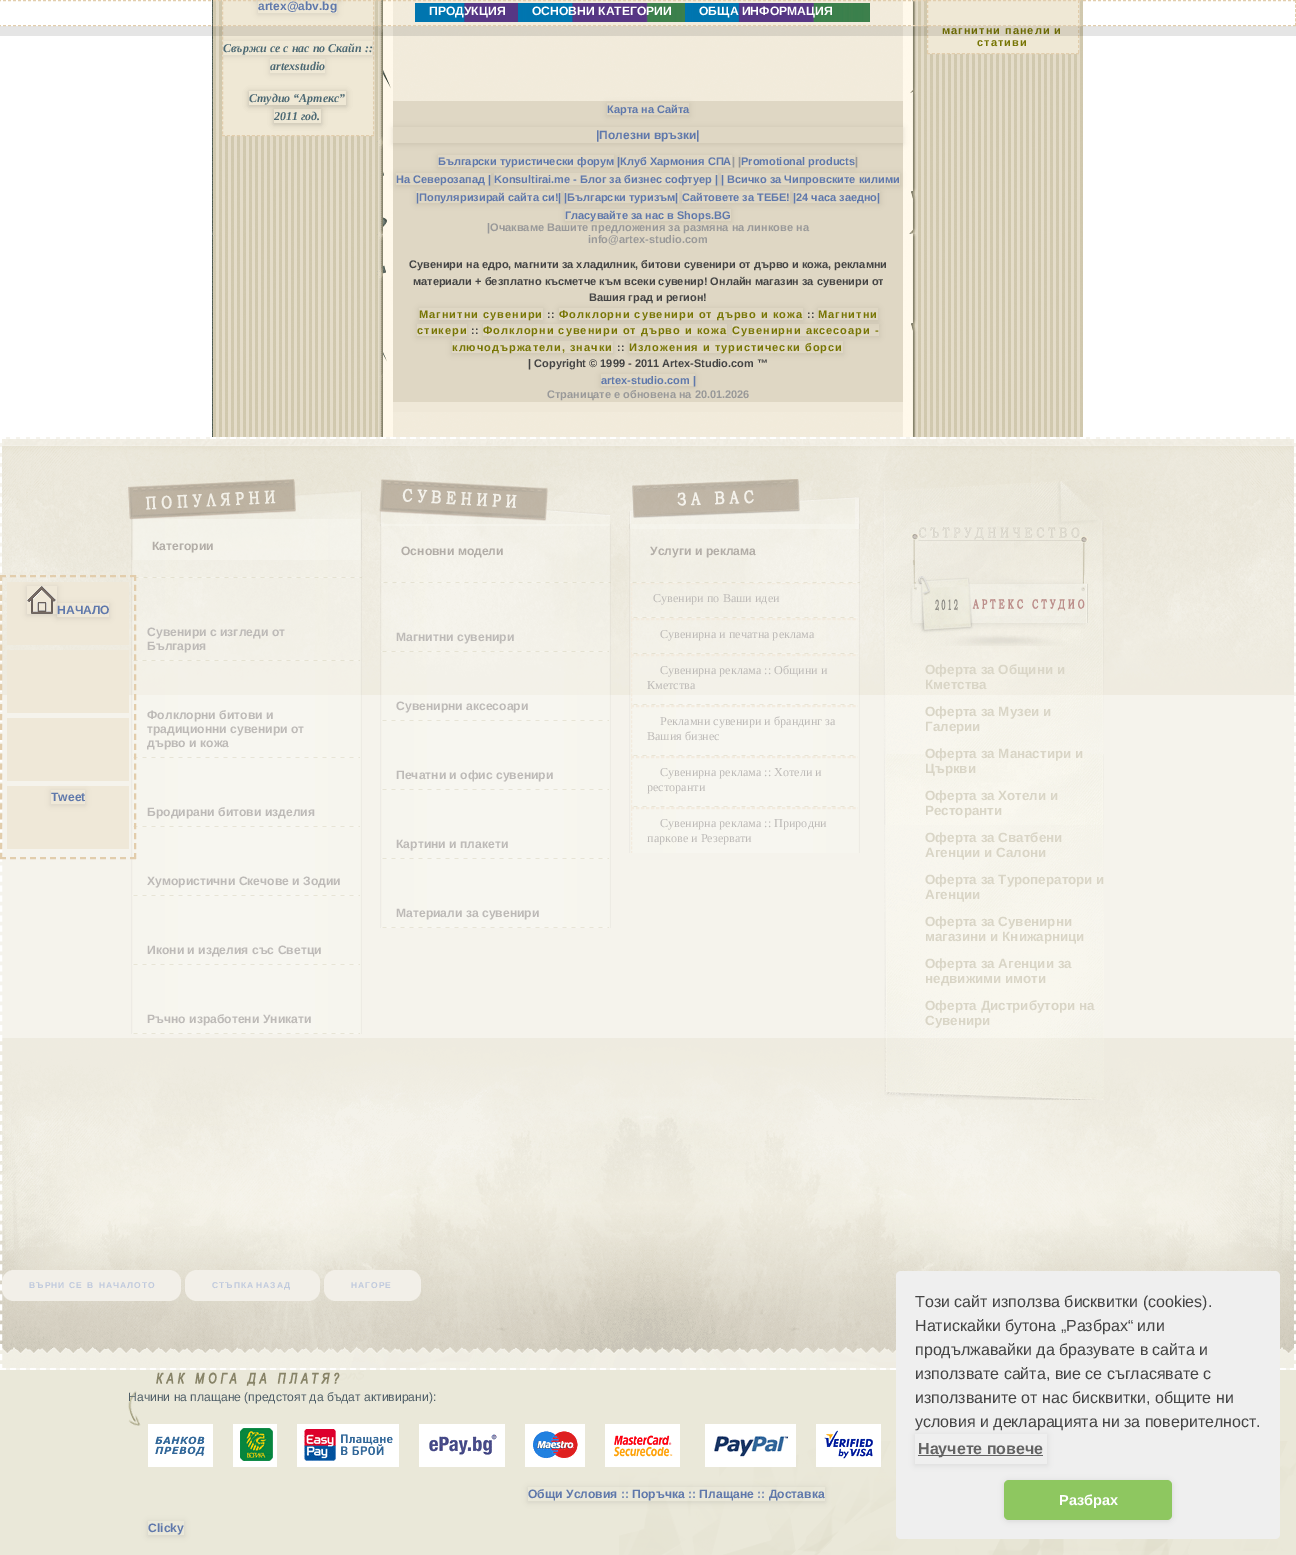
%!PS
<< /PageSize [1296 1555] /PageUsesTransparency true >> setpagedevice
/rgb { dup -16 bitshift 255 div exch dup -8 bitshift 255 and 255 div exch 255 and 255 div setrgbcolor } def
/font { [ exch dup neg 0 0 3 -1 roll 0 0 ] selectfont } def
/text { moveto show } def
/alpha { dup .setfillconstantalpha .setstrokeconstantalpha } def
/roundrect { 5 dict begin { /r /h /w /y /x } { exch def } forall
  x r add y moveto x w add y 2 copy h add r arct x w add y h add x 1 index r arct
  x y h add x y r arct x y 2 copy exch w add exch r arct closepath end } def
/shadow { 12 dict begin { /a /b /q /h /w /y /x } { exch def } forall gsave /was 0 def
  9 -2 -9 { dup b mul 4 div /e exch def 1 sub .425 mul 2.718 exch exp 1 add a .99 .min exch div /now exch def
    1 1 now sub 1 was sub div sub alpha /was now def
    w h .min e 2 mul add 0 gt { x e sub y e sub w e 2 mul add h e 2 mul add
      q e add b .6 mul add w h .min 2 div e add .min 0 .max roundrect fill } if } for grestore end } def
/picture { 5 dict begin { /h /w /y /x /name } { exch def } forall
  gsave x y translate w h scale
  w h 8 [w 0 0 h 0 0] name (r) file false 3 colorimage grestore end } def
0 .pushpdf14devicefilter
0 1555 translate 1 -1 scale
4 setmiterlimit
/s1 { /LiberationSans-Bold 12 font 16#5F78AB rgb } def
/s2 { /LiberationSerif-BoldItalic 12 font 16#4B6873 rgb } def
/s3 { /LiberationSans-Bold 12.15 font 16#FFFFFF rgb } def
/s4 { /LiberationSans-Bold 11 font 16#5F78AB rgb } def
/s5 { /LiberationSans-Bold 11 font 16#999999 rgb } def
/s6 { /LiberationSans-Bold 11 font 16#444444 rgb } def
/s7 { /LiberationSans-Bold 12.15 font 16#B2ADA7 rgb } def
/s8 { /LiberationSans-Bold 12.15 font 16#BDBAB7 rgb } def
/s9 { /LiberationSerif-Regular 12.15 font 16#BDBAB7 rgb } def
/s10 { /LiberationSans-Bold 13.4 font 16#D9D5C6 rgb } def
/s11 { /LiberationSans-Bold 12.15 font 16#5F78AB rgb } def
/s12 { /LiberationSans-Regular 12.15 font 16#4F5E67 rgb } def
/s13 { /LiberationSans-Regular 16 font 16#444444 rgb } def
/s14 { /LiberationSans-Bold 16 font 16#636363 rgb } def
/s15 { /LiberationSans-Bold 14.5 font 16#FFFFFF rgb } def
16#FFFFFF rgb
0 0 1296 1555 rectfill
(pic1.raw) 212 0 871 437 picture
16#EFE8D5 rgb
222 0 152 136 rectfill
16#E2CDAC rgb
[3 1.99] 0 setdash
373.5 -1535 moveto 373.5 136 lineto stroke
[3 1.97] 0 setdash
222 135.5 moveto 374 135.5 lineto stroke
[3 1.99] 0 setdash
222.5 -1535 moveto 222.5 136 lineto stroke
16#000000 rgb
254 -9 87 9 0 3 0.1 shadow
gsave
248 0 moveto 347 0 lineto 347 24 lineto 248 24 lineto closepath 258 -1 moveto 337 -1 lineto 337 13 lineto 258 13 lineto closepath eoclip newpath
258 0 79 14 0 3 0.1 shadow
grestore
s1
(artex@abv.bg) 258 10 text
gsave
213 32 moveto 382 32 lineto 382 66 lineto 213 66 lineto closepath 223 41 moveto 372 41 lineto 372 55 lineto 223 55 lineto closepath eoclip newpath
16#000000 rgb
223 42 149 14 0 3 0.1 shadow
grestore
gsave
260 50 moveto 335 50 lineto 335 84 lineto 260 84 lineto closepath 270 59 moveto 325 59 lineto 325 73 lineto 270 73 lineto closepath eoclip newpath
16#000000 rgb
270 60 55 14 0 3 0.1 shadow
grestore
s2
(Свържи се с нас по Скайп ::) 223 52 text
(artexstudio) 270 70 text
gsave
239 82 moveto 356 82 lineto 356 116 lineto 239 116 lineto closepath 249 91 moveto 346 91 lineto 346 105 lineto 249 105 lineto closepath eoclip newpath
16#000000 rgb
249 92 97 14 0 3 0.1 shadow
249 92 97 14 0 3 0.1 shadow
grestore
gsave
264 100 moveto 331 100 lineto 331 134 lineto 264 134 lineto closepath 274 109 moveto 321 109 lineto 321 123 lineto 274 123 lineto closepath eoclip newpath
16#000000 rgb
274 110 47 14 0 3 0.1 shadow
274 110 47 14 0 3 0.1 shadow
grestore
(Студио “Артекс”) 249 102 text
(2011 год.) 274 120 text
16#EFE8D5 rgb
927 0 152 54 rectfill
16#E2CDAC rgb
[3 2] 0 setdash
1078.5 -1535 moveto 1078.5 54 lineto stroke
[3 1.97] 0 setdash
927 53.5 moveto 1079 53.5 lineto stroke
[3 2] 0 setdash
927.5 -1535 moveto 927.5 54 lineto stroke
/LiberationSans-Bold 11 font
16#777504 rgb
942 34 moveto 1 0 (магнитни панели и) ashow
977 46 moveto 1 0 (стативи) ashow
0.1 alpha
16#000000 rgb
0 26 1296 10 rectfill
1 alpha
16#E2CDAC rgb
-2 0.5 moveto 1296 0.5 lineto stroke
[3 1.6] 0 setdash
1295.5 0 moveto 1295.5 26 lineto stroke
[3 2] 0 setdash
-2 25.5 moveto 1296 25.5 lineto stroke
(pic2.raw) 415 3 103 19 picture
s3
(ПРОДУКЦИЯ) 429 15 text
(pic3.raw) 518 3 167 19 picture
(ОСНОВНИ КАТЕГОРИИ) 532 15 text
(pic4.raw) 685 3 185 19 picture
(ОБЩА ИНФОРМАЦИЯ) 699 15 text
16#DFD7C4 rgb
393 101 510 301 rectfill
16#EFE8D8 rgb
393 402 510 10 rectfill
gsave
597 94 moveto 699 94 lineto 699 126 lineto 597 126 lineto closepath 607 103 moveto 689 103 lineto 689 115 lineto 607 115 lineto closepath eoclip newpath
16#000000 rgb
607 104 82 12 0 3 0.1 shadow
grestore
s4
(Карта на Сайта) 607 113 text
gsave
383 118 moveto 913 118 lineto 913 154 lineto 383 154 lineto closepath 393 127 moveto 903 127 lineto 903 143 lineto 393 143 lineto closepath eoclip newpath
16#000000 rgb
393 128 510 16 0 3 0.1 shadow
grestore
s1
(|Полезни връзки|) 596 139 text
gsave
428 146 moveto 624 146 lineto 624 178 lineto 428 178 lineto closepath 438 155 moveto 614 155 lineto 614 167 lineto 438 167 lineto closepath eoclip newpath
16#000000 rgb
438 156 176 12 0 3 0.1 shadow
grestore
s4
(Български туристически форум |) 438 165 text
gsave
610 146 moveto 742 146 lineto 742 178 lineto 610 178 lineto closepath 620 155 moveto 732 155 lineto 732 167 lineto 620 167 lineto closepath eoclip newpath
16#000000 rgb
620 156 112 12 0 3 0.1 shadow
grestore
(Клуб Хармония СПА) 620 165 text
s5
(| |) 732 165 text
gsave
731 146 moveto 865 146 lineto 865 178 lineto 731 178 lineto closepath 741 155 moveto 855 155 lineto 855 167 lineto 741 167 lineto closepath eoclip newpath
16#000000 rgb
741 156 114 12 0 3 0.1 shadow
grestore
s4
(Promotional products) 741 165 text
s5
(|) 855 165 text
gsave
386 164 moveto 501 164 lineto 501 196 lineto 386 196 lineto closepath 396 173 moveto 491 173 lineto 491 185 lineto 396 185 lineto closepath eoclip newpath
16#000000 rgb
396 174 95 12 0 3 0.1 shadow
grestore
s4
(На Северозапад |) 396 183 text
gsave
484 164 moveto 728 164 lineto 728 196 lineto 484 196 lineto closepath 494 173 moveto 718 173 lineto 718 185 lineto 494 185 lineto closepath eoclip newpath
16#000000 rgb
494 174 224 12 0 3 0.1 shadow
grestore
(Konsultirai.me - Блог за бизнес софтуер |) 494 183 text
gsave
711 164 moveto 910 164 lineto 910 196 lineto 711 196 lineto closepath 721 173 moveto 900 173 lineto 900 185 lineto 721 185 lineto closepath eoclip newpath
16#000000 rgb
721 174 179 12 0 3 0.1 shadow
grestore
(| Всичко за Чипровските килими) 721 183 text
gsave
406 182 moveto 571 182 lineto 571 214 lineto 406 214 lineto closepath 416 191 moveto 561 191 lineto 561 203 lineto 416 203 lineto closepath eoclip newpath
16#000000 rgb
416 192 145 12 0 3 0.1 shadow
grestore
(|Популяризирай сайта си!|) 416 201 text
gsave
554 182 moveto 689 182 lineto 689 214 lineto 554 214 lineto closepath 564 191 moveto 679 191 lineto 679 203 lineto 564 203 lineto closepath eoclip newpath
16#000000 rgb
564 192 115 12 0 3 0.1 shadow
grestore
(|Български туризъм|) 564 201 text
gsave
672 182 moveto 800 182 lineto 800 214 lineto 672 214 lineto closepath 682 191 moveto 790 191 lineto 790 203 lineto 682 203 lineto closepath eoclip newpath
16#000000 rgb
682 192 108 12 0 3 0.1 shadow
grestore
(Сайтовете за ТЕБЕ!) 682 201 text
gsave
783 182 moveto 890 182 lineto 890 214 lineto 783 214 lineto closepath 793 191 moveto 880 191 lineto 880 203 lineto 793 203 lineto closepath eoclip newpath
16#000000 rgb
793 192 87 12 0 3 0.1 shadow
grestore
(|24 часа заедно|) 793 201 text
gsave
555 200 moveto 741 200 lineto 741 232 lineto 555 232 lineto closepath 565 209 moveto 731 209 lineto 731 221 lineto 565 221 lineto closepath eoclip newpath
16#000000 rgb
565 210 166 12 0 3 0.1 shadow
grestore
(Гласувайте за нас в Shops.BG) 565 219 text
s5
(|Очакваме Вашите предложения за размяна на линкове на) 487 231 text
(info@artex-studio.com) 588 243 text
s6
(Сувенири на едро, магнити за хладилник, битови сувенири от дърво и кожа, рекламни) 409 268 text
(материали + безплатно късметче към всеки сувенир! Онлайн магазин за сувенири от) 413 285 text
(Вашия град и регион!) 589 301 text
gsave
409 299 moveto 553 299 lineto 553 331 lineto 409 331 lineto closepath 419 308 moveto 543 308 lineto 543 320 lineto 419 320 lineto closepath eoclip newpath
16#000000 rgb
419 309 124 12 0 3 0.1 shadow
grestore
16#777504 rgb
419 318 moveto 1 0 (Магнитни сувенири) ashow
s6
(::) 547 318 text
gsave
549 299 moveto 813 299 lineto 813 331 lineto 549 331 lineto closepath 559 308 moveto 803 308 lineto 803 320 lineto 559 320 lineto closepath eoclip newpath
16#000000 rgb
559 309 244 12 0 3 0.1 shadow
grestore
16#777504 rgb
559 318 moveto 1 0 (Фолклорни сувенири от дърво и кожа) ashow
s6
(::) 807 318 text
gsave
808 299 moveto 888 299 lineto 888 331 lineto 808 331 lineto closepath 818 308 moveto 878 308 lineto 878 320 lineto 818 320 lineto closepath eoclip newpath
16#000000 rgb
818 309 60 12 0 3 0.1 shadow
grestore
16#777504 rgb
818 318 moveto 1 0 (Магнитни) ashow
gsave
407 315 moveto 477 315 lineto 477 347 lineto 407 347 lineto closepath 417 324 moveto 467 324 lineto 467 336 lineto 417 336 lineto closepath eoclip newpath
16#000000 rgb
417 325 50 12 0 3 0.1 shadow
grestore
417 334 moveto 1 0 (стикери) ashow
s6
(::) 471 334 text
gsave
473 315 moveto 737 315 lineto 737 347 lineto 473 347 lineto closepath 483 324 moveto 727 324 lineto 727 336 lineto 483 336 lineto closepath eoclip newpath
16#000000 rgb
483 325 244 12 0 3 0.1 shadow
grestore
16#777504 rgb
483 334 moveto 1 0 (Фолклорни сувенири от дърво и кожа) ashow
gsave
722 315 moveto 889 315 lineto 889 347 lineto 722 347 lineto closepath 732 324 moveto 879 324 lineto 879 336 lineto 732 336 lineto closepath eoclip newpath
16#000000 rgb
732 325 147 12 0 3 0.1 shadow
grestore
732 334 moveto 1 0 (Сувенирни аксесоари -) ashow
gsave
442 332 moveto 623 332 lineto 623 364 lineto 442 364 lineto closepath 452 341 moveto 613 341 lineto 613 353 lineto 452 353 lineto closepath eoclip newpath
16#000000 rgb
452 342 161 12 0 3 0.1 shadow
grestore
452 351 moveto 1 0 (ключодържатели, значки) ashow
s6
(::) 617 351 text
gsave
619 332 moveto 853 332 lineto 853 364 lineto 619 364 lineto closepath 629 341 moveto 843 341 lineto 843 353 lineto 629 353 lineto closepath eoclip newpath
16#000000 rgb
629 342 214 12 0 3 0.1 shadow
grestore
16#777504 rgb
629 351 moveto 1 0 (Изложения и туристически борси) ashow
s6
(| Copyright © 1999 - 2011 Artex-Studio.com ™) 528 367 text
gsave
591 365 moveto 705 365 lineto 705 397 lineto 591 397 lineto closepath 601 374 moveto 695 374 lineto 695 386 lineto 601 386 lineto closepath eoclip newpath
16#000000 rgb
601 375 94 12 0 3 0.1 shadow
grestore
s4
(artex-studio.com |) 601 384 text
s5
(Страницате е обновена на 20.01.2026) 547 398 text
16#F5F3EC rgb
0 437 1296 933 rectfill
(pic5.raw) 0 1038 1296 330 picture
16#FFFFFF rgb
2 setlinewidth
[6 4] 0 setdash
0 438 moveto 1296 438 lineto stroke
[6 3.97] 0 setdash
1295 437 moveto 1295 1370 lineto stroke
[6 4] 0 setdash
0 1369 moveto 1296 1369 lineto stroke
[6 3.97] 0 setdash
1 437 moveto 1 1370 lineto stroke
(pic6.raw) 2 439 1292 256 picture
(pic7.raw) 128 479 234 81 picture
(pic8.raw) 131 519 231 515 picture
(pic9.raw) 132 577 230 1 picture
s7
(Категории) 152 550 text
(pic10.raw) 132 660 228 1 picture
s8
(Сувенири с изгледи от) 147 636 text
(България) 147 650 text
(pic11.raw) 132 757 228 1 picture
(Фолклорни битови и) 147 719 text
(традиционни сувенири от) 147 733 text
(дърво и кожа) 147 747 text
(pic11.raw) 132 826 228 1 picture
(Бродирани битови изделия) 147 816 text
(pic11.raw) 132 895 228 1 picture
(Хумористични Скечове и Зодии) 147 885 text
(pic11.raw) 132 964 228 1 picture
(Икони и изделия със Светци) 147 954 text
(pic11.raw) 132 1033 228 1 picture
(Ръчно изработени Уникати) 147 1023 text
(pic12.raw) 379 479 231 47 picture
(pic13.raw) 380 524 231 404 picture
(pic14.raw) 381 582 230 1 picture
s7
(Основни модели) 401 555 text
(pic15.raw) 381 651 228 1 picture
s8
(Магнитни сувенири) 396 641 text
(pic11.raw) 381 720 228 1 picture
(Сувенирни аксесоари) 396 710 text
(pic11.raw) 381 789 228 1 picture
(Печатни и офис сувенири) 396 779 text
(pic11.raw) 381 858 228 1 picture
(Картини и плакети) 396 848 text
(pic11.raw) 381 927 228 1 picture
(Материали за сувенири) 396 917 text
(pic16.raw) 629 479 231 50 picture
(pic17.raw) 629 524 231 329 picture
(pic18.raw) 630 582 230 1 picture
s7
(Услуги и реклама) 650 555 text
(pic19.raw) 632 617 226 1 picture
gsave
626 583 232 270 rectclip
16#F3EBDE rgb
1 setlinewidth
[3 2.04] 0 setdash
631 583.5 moveto 861 583.5 lineto stroke
631 618.5 moveto 861 618.5 lineto stroke
grestore
16#F3EBDE rgb
1 setlinewidth
[3 1.71] 0 setdash
631.5 583 moveto 631.5 619 lineto stroke
s9
(Сувенири по Ваши идеи) 653 602 text
(pic20.raw) 632 653 226 1 picture
gsave
626 583 232 270 rectclip
16#F3EBDE rgb
[3 2.04] 0 setdash
631 619.5 moveto 861 619.5 lineto stroke
631 654.5 moveto 861 654.5 lineto stroke
grestore
16#F3EBDE rgb
631.5 619 moveto 631.5 655 lineto stroke
s9
(Сувенирна и печатна реклама) 660 638 text
(pic21.raw) 633 704 221 1 picture
gsave
626 583 232 270 rectclip
16#F3EBDE rgb
[3 2.04] 0 setdash
631 655.5 moveto 861 655.5 lineto stroke
631 705.5 moveto 861 705.5 lineto stroke
grestore
16#F3EBDE rgb
[3 1.8] 0 setdash
631.5 655 moveto 631.5 706 lineto stroke
s9
(Сувенирна реклама :: Общини и) 660 674 text
(Кметства) 647 689 text
(pic21.raw) 633 755 221 1 picture
gsave
626 583 232 270 rectclip
16#F3EBDE rgb
[3 2.04] 0 setdash
631 706.5 moveto 861 706.5 lineto stroke
631 756.5 moveto 861 756.5 lineto stroke
grestore
16#F3EBDE rgb
631.5 706 moveto 631.5 757 lineto stroke
s9
(Рекламни сувенири и брандинг за) 660 725 text
(Вашия бизнес) 647 740 text
(pic21.raw) 633 806 221 1 picture
gsave
626 583 232 270 rectclip
16#F3EBDE rgb
[3 2.04] 0 setdash
631 757.5 moveto 861 757.5 lineto stroke
631 807.5 moveto 861 807.5 lineto stroke
grestore
16#F3EBDE rgb
631.5 757 moveto 631.5 808 lineto stroke
s9
(Сувенирна реклама :: Хотели и) 660 776 text
(ресторанти) 647 791 text
gsave
626 583 232 270 rectclip
16#F3EBDE rgb
[3 2.04] 0 setdash
631 808.5 moveto 861 808.5 lineto stroke
[3 1.8] 0 setdash
631.5 808 moveto 631.5 859 lineto stroke
grestore
(Сувенирна реклама :: Природни) 660 827 text
(паркове и Резервати) 647 842 text
(pic22.raw) 883 481 221 344 picture
(pic23.raw) 910 534 178 112 picture
(pic24.raw) 884 754 220 346 picture
s10
(Оферта за Общини и) 925 674 text
(Кметства) 925 689 text
(Оферта за Музеи и) 925 716 text
(Галерии) 925 731 text
(Оферта за Манастири и) 925 758 text
(Църкви) 925 773 text
(Оферта за Хотели и) 925 800 text
(Ресторанти) 925 815 text
(Оферта за Сватбени) 925 842 text
(Агенции и Салони) 925 857 text
(Оферта за Туроператори и) 925 884 text
(Агенции) 925 899 text
(Оферта за Сувенирни) 925 926 text
(магазини и Книжарници) 925 941 text
(Оферта за Агенции за) 925 968 text
(недвижими имоти) 925 983 text
(Оферта Дистрибутори на) 925 1010 text
(Сувенири) 925 1025 text
16#F2EFE8 rgb
2 1270 179 31 12 roundrect fill
/LiberationSans-Bold 8.5 font
16#BFC9DD rgb
29 1288 moveto 1 0 (ВЪРНИ) ashow
69 1288 moveto 1 0 (СЕ) ashow
87 1288 moveto 1 0 (В) ashow
99 1288 moveto 1 0 (НАЧАЛОТО) ashow
16#F2EFE8 rgb
185 1270 135 31 12 roundrect fill
16#BFC9DD rgb
212 1288 moveto 1 0 (СТЪПКА) ashow
256 1288 moveto 1 0 (НАЗАД) ashow
16#F2EFE8 rgb
324 1270 97 31 12 roundrect fill
16#BFC9DD rgb
351 1288 moveto 1 0 (НАГОРЕ) ashow
16#E2CDAC rgb
2 setlinewidth
[6 4] 0 setdash
0 576 moveto 136 576 lineto stroke
[6 3.93] 0 setdash
135 575 moveto 135 859 lineto stroke
[6 4] 0 setdash
0 858 moveto 136 858 lineto stroke
[6 3.93] 0 setdash
1 575 moveto 1 859 lineto stroke
16#EFE8D8 rgb
7 582 122 63 rectfill
gsave
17 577 moveto 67 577 lineto 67 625 lineto 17 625 lineto closepath 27 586 moveto 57 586 lineto 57 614 lineto 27 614 lineto closepath eoclip newpath
16#000000 rgb
27 587 30 28 0 3 0.1 shadow
grestore
gsave
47 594 moveto 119 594 lineto 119 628 lineto 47 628 lineto closepath 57 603 moveto 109 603 lineto 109 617 lineto 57 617 lineto closepath eoclip newpath
16#000000 rgb
57 604 52 14 0 3 0.1 shadow
grestore
(pic25.raw) 27 586 29 28 picture
s11
(НАЧАЛО) 57 614 text
16#EFE8D8 rgb
7 650 122 63 rectfill
7 718 122 63 rectfill
7 786 122 63 rectfill
gsave
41 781 moveto 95 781 lineto 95 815 lineto 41 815 lineto closepath 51 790 moveto 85 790 lineto 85 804 lineto 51 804 lineto closepath eoclip newpath
16#000000 rgb
51 791 34 14 0 3 0.1 shadow
grestore
s11
(Tweet) 51 801 text
16#EAE8D9 rgb
0 1370 1296 185 rectfill
(pic26.raw) 619 1441 677 114 picture
(pic27.raw) 128 1371 236 55 picture
s12
(Начини на плащане \(предстоят да бъдат активирани\):) 128 1401 text
(pic28.raw) 148 1424 65 43 picture
(pic29.raw) 233 1424 44 43 picture
(pic30.raw) 297 1424 102 43 picture
(pic31.raw) 419 1424 86 43 picture
(pic32.raw) 525 1424 60 43 picture
(pic33.raw) 605 1424 75 43 picture
(pic34.raw) 705 1424 91 43 picture
(pic35.raw) 816 1424 65 43 picture
gsave
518 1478 moveto 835 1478 lineto 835 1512 lineto 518 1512 lineto closepath 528 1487 moveto 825 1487 lineto 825 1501 lineto 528 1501 lineto closepath eoclip newpath
16#000000 rgb
528 1488 297 14 0 3 0.1 shadow
grestore
s11
(Общи Условия :: Поръчка :: Плащане :: Доставка) 528 1498 text
gsave
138 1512 moveto 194 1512 lineto 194 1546 lineto 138 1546 lineto closepath 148 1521 moveto 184 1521 lineto 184 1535 lineto 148 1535 lineto closepath eoclip newpath
16#000000 rgb
148 1522 36 14 0 3 0.1 shadow
grestore
(Clicky) 148 1532 text
16#EFEFEF rgb
896 1271 384 268 5 roundrect fill
s13
(Този сайт използва бисквитки \(cookies\).) 915 1307 text
(Натискайки бутона „Разбрах“ или) 915 1331 text
(продължавайки да бразувате в сайта и) 915 1355 text
(използвате сайта, вие се съгласявате с) 915 1379 text
(използваните от нас бисквитки, общите ни) 915 1403 text
(условия и декларацията ни за поверителност.) 915 1427 text
gsave
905 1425 moveto 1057 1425 lineto 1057 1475 lineto 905 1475 lineto closepath 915 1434 moveto 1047 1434 lineto 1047 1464 lineto 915 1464 lineto closepath eoclip newpath
16#000000 rgb
915 1435 132 30 0 3 0.08 shadow
grestore
16#636363 rgb
918 1455 125 1 rectfill
s14
(Научете повече) 918 1454 text
16#000000 rgb
1004 1481 168 40 5 3 0.1 shadow
16#8EC760 rgb
1004 1480 168 40 5 roundrect fill
s15
(Разбрах) 1059 1505 text
.poppdf14devicefilter showpage
